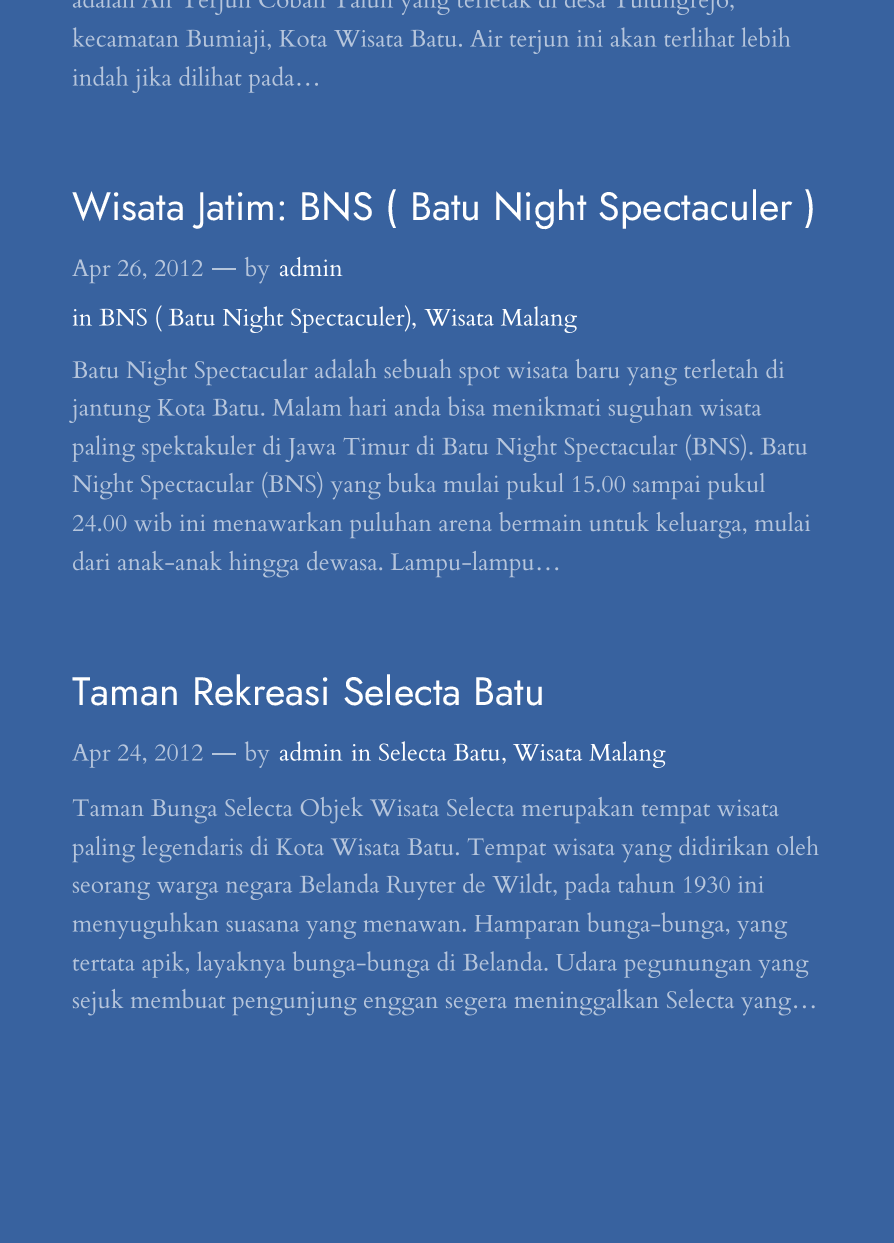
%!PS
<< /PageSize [894 1243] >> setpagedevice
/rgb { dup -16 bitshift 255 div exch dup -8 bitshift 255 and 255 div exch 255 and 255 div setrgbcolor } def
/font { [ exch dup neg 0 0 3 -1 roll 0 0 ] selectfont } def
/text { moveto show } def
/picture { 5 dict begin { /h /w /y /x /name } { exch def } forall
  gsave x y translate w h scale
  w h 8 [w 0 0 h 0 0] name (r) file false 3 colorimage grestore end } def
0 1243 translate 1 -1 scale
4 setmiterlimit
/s1 { /Jost-Regular 39.5 font 16#FFFFFF rgb } def
16#38629F rgb
0 0 894 1243 rectfill
(pic1.raw) 72 0 662 15 picture
(pic2.raw) 72 27 719 27 picture
(pic3.raw) 72 66 246 27 picture
s1
(Wisata Jatim: BNS \( Batu Night Spectaculer \)) 72 220 text
(pic4.raw) 72 259 131 25 picture
16#B5C5DB rgb
212 268 24 2 rectfill
(pic5.raw) 244 256 26 28 picture
(pic6.raw) 279 256 64 21 picture
(pic7.raw) 72 309 21 17 picture
(pic8.raw) 99 305 312 28 picture
(pic9.raw) 412 322 4 7 picture
(pic10.raw) 424 306 153 27 picture
(pic11.raw) 72 358 713 28 picture
(pic12.raw) 69 396 693 27 picture
(pic13.raw) 72 434 736 28 picture
(pic14.raw) 72 471 693 29 picture
(pic15.raw) 72 511 739 28 picture
(pic16.raw) 73 550 486 28 picture
s1
(Taman Rekreasi Selecta Batu) 72 705 text
(pic17.raw) 72 744 131 24 picture
16#B5C5DB rgb
212 753 24 2 rectfill
(pic18.raw) 244 741 26 27 picture
(pic19.raw) 279 741 64 20 picture
(pic7.raw) 351 744 21 17 picture
(pic20.raw) 379 741 121 20 picture
(pic9.raw) 502 757 4 7 picture
(pic21.raw) 512 741 154 27 picture
(pic22.raw) 72 796 707 28 picture
(pic23.raw) 72 835 747 28 picture
(pic24.raw) 72 873 692 27 picture
(pic25.raw) 72 912 716 27 picture
(pic26.raw) 72 951 737 27 picture
(pic27.raw) 72 988 743 28 picture
showpage
